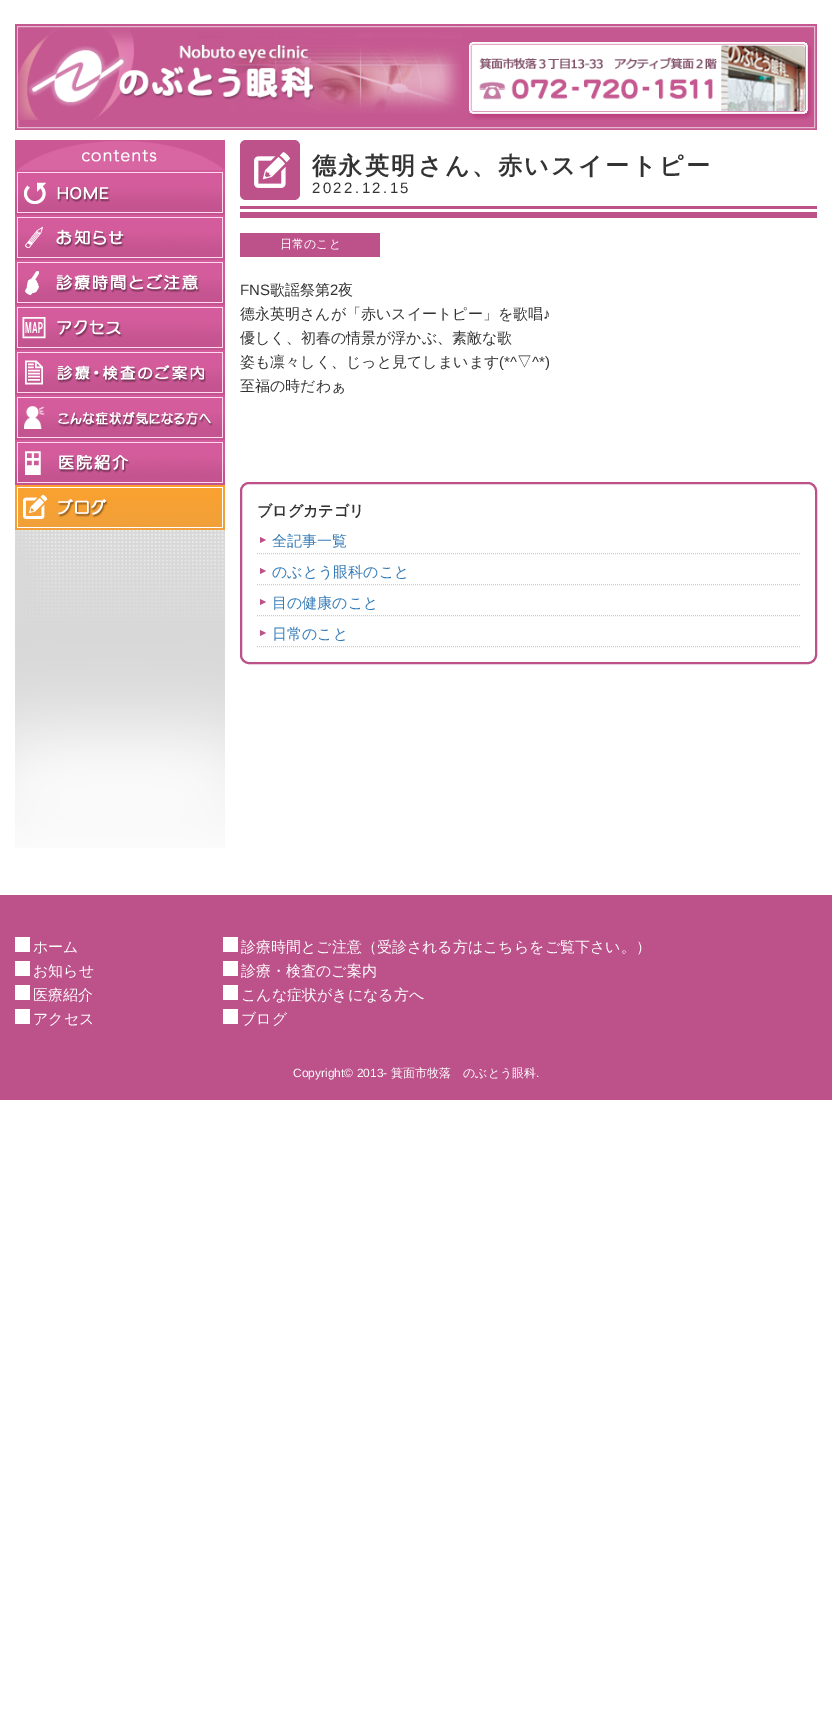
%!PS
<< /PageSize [832 1716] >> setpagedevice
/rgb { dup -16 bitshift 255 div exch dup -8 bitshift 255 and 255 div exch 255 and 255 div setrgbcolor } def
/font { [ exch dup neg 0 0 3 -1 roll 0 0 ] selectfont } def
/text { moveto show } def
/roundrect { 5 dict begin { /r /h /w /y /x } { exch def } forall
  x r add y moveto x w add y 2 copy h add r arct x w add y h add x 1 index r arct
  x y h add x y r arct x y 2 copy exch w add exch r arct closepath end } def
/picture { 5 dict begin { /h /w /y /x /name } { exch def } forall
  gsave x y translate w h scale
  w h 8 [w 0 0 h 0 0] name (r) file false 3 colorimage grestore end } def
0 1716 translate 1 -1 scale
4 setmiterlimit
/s1 { /WenQuanYiZenHei-Medium 12 font 16#FFFFFF rgb } def
/s2 { /LiberationSans-Regular 15 font 16#333333 rgb } def
/s3 { /WenQuanYiZenHei-Medium 15 font 16#333333 rgb } def
/s4 { /WenQuanYiZenHei-Bold 15 font 16#333333 rgb } def
/s5 { /WenQuanYiZenHei-Medium 15 font 16#337AB7 rgb } def
/s6 { /WenQuanYiZenHei-Medium 15 font 16#FFFFFF rgb } def
/s7 { /LiberationSans-Regular 12 font 16#FFFFFF rgb } def
16#FFFFFF rgb
0 0 832 1716 rectfill
16#C55891 rgb
15 24 802 106 rectfill
16#E6B7D0 rgb
17.5 26.5 797 101 rectstroke
(pic1.raw) 18 28 444 92 picture
(pic2.raw) 469 42 344 78 picture
(pic3.raw) 15 140 210 30 picture
(pic4.raw) 15 170 210 45 picture
(pic5.raw) 15 215 210 45 picture
(pic6.raw) 15 260 210 45 picture
(pic7.raw) 15 305 210 45 picture
(pic8.raw) 15 350 210 45 picture
(pic9.raw) 15 395 210 45 picture
(pic10.raw) 15 440 210 45 picture
(pic11.raw) 15 485 210 45 picture
(pic12.raw) 15 530 210 318 picture
16#BD518A rgb
240 140 60 60 6 roundrect fill
(pic13.raw) 254 152 36 36 picture
/WenQuanYiZenHei-Bold 24 font
16#333333 rgb
312 174 moveto 2.4 0 (德永英明さん、赤いスイートピー) ashow
/LiberationSans-Regular 15 font
312 193 moveto 2.4 0 (2022.12.15) ashow
16#BD518A rgb
240 206 577 3 rectfill
240 212 577 6 rectfill
240 233 140 24 rectfill
s1
(日常のこと) 280 248 text
s2
(FNS) 240 295 text
s3
(歌謡祭第) 270 295 text
s2
(2) 330 295 text
s3
(夜) 338 295 text
(德永英明さんが「赤いスイートピー」を歌唱) 240 319 text
s2
(♪) 543 319 text
s3
(優しく、初春の情景が浮かぶ、素敵な歌) 240 343 text
(姿も凛々しく、じっと見てしまいます) 240 367 text
s2
(\(*^) 499 367 text
s3
(▽) 517 367 text
s2
(^*\)) 532 367 text
s3
(至福の時だわぁ) 240 391 text
16#BD518A rgb
2 setlinewidth
241 483 575 180 8 roundrect stroke
s4
(ブログカテゴリ) 257 516 text
16#CCCCCC rgb
1 setlinewidth
[1 1] 0 setdash
257 553.5 moveto 800 553.5 lineto stroke
16#BD518A rgb
260 543 moveto 260 537 lineto 266 540 lineto closepath fill
s5
(全記事一覧) 272 546 text
16#CCCCCC rgb
257 584.5 moveto 800 584.5 lineto stroke
16#BD518A rgb
260 574 moveto 260 568 lineto 266 571 lineto closepath fill
s5
(のぶとう眼科のこと) 272 577 text
16#CCCCCC rgb
257 615.5 moveto 800 615.5 lineto stroke
16#BD518A rgb
260 605 moveto 260 599 lineto 266 602 lineto closepath fill
s5
(目の健康のこと) 272 608 text
16#CCCCCC rgb
257 646.5 moveto 800 646.5 lineto stroke
16#BD518A rgb
260 636 moveto 260 630 lineto 266 633 lineto closepath fill
s5
(日常のこと) 272 639 text
16#BD518A rgb
0 895 832 205 rectfill
16#FFFFFF rgb
15 937 15 15 rectfill
(ホーム) 33 952 text
15 961 15 15 rectfill
(お知らせ) 33 976 text
15 985 15 15 rectfill
(医療紹介) 33 1000 text
15 1009 15 15 rectfill
(アクセス) 33 1024 text
223 937 15 15 rectfill
(診療時間とご注意（受診される方はこちらをご覧下さい。）) 241 952 text
223 961 15 15 rectfill
(診療・検査のご案内) 241 976 text
223 985 15 15 rectfill
(こんな症状がきになる方へ) 241 1000 text
223 1009 15 15 rectfill
(ブログ) 241 1024 text
s7
(Copyright© 2013-) 293 1077 text
s1
(箕面市牧落　のぶとう眼科) 391 1077 text
s7
(.) 536 1077 text
showpage
